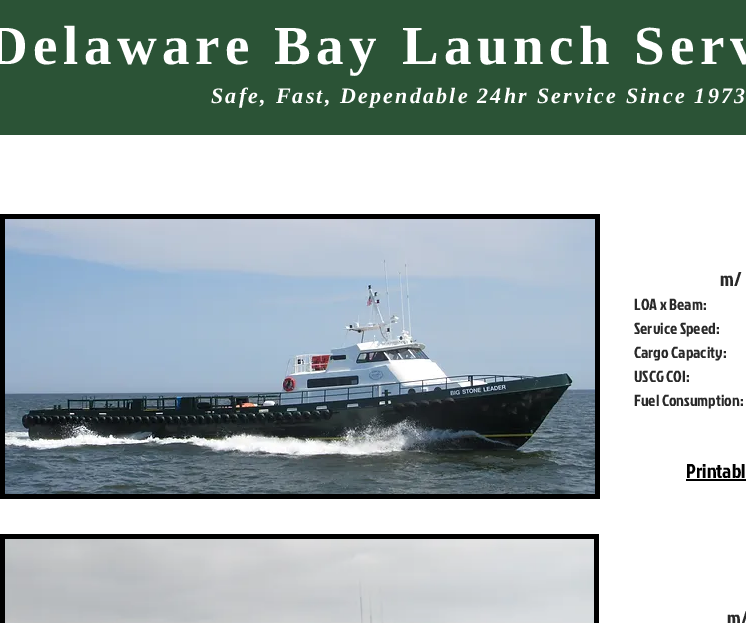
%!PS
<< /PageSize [746 623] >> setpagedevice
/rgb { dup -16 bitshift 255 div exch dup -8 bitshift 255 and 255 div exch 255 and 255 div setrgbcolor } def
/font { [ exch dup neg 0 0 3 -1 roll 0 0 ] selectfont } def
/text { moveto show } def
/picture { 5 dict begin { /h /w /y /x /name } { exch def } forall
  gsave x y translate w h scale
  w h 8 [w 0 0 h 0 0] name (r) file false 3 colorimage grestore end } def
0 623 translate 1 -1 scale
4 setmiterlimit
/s1 { /JockeyOne-Regular 20 font 16#292929 rgb } def
/s2 { /JockeyOne-Regular 16 font 16#292929 rgb } def
/s3 { /JockeyOne-Regular 20 font 16#000000 rgb } def
16#FFFFFF rgb
0 0 746 623 rectfill
16#2B5336 rgb
0 0 746 135 rectfill
/LiberationSerif-Bold 55 font
16#FFFFFF rgb
-12 64 moveto 5.5 0 (Delaware Bay Launch Serv) ashow
/LiberationSerif-BoldItalic 22 font
211 103 moveto 2.2 0 (Safe, Fast, Dependable 24hr Service Since 1973) ashow
16#000000 rgb
0 214 600 285 rectfill
(pic1.raw) 5 219 590 275 picture
s1
(m/) 720 286 text
s2
(LOA x Beam:) 634 310 text
(Service Speed:) 634 334 text
(Cargo Capacity:) 634 358 text
(USCG COI:) 634 382 text
(Fuel Consumption:) 634 406 text
s3
(Printabl) 686 478 text
686 479 60 2 rectfill
0 534 599 89 rectfill
(pic2.raw) 5 539 589 84 picture
s1
(m/) 727 625 text
showpage
